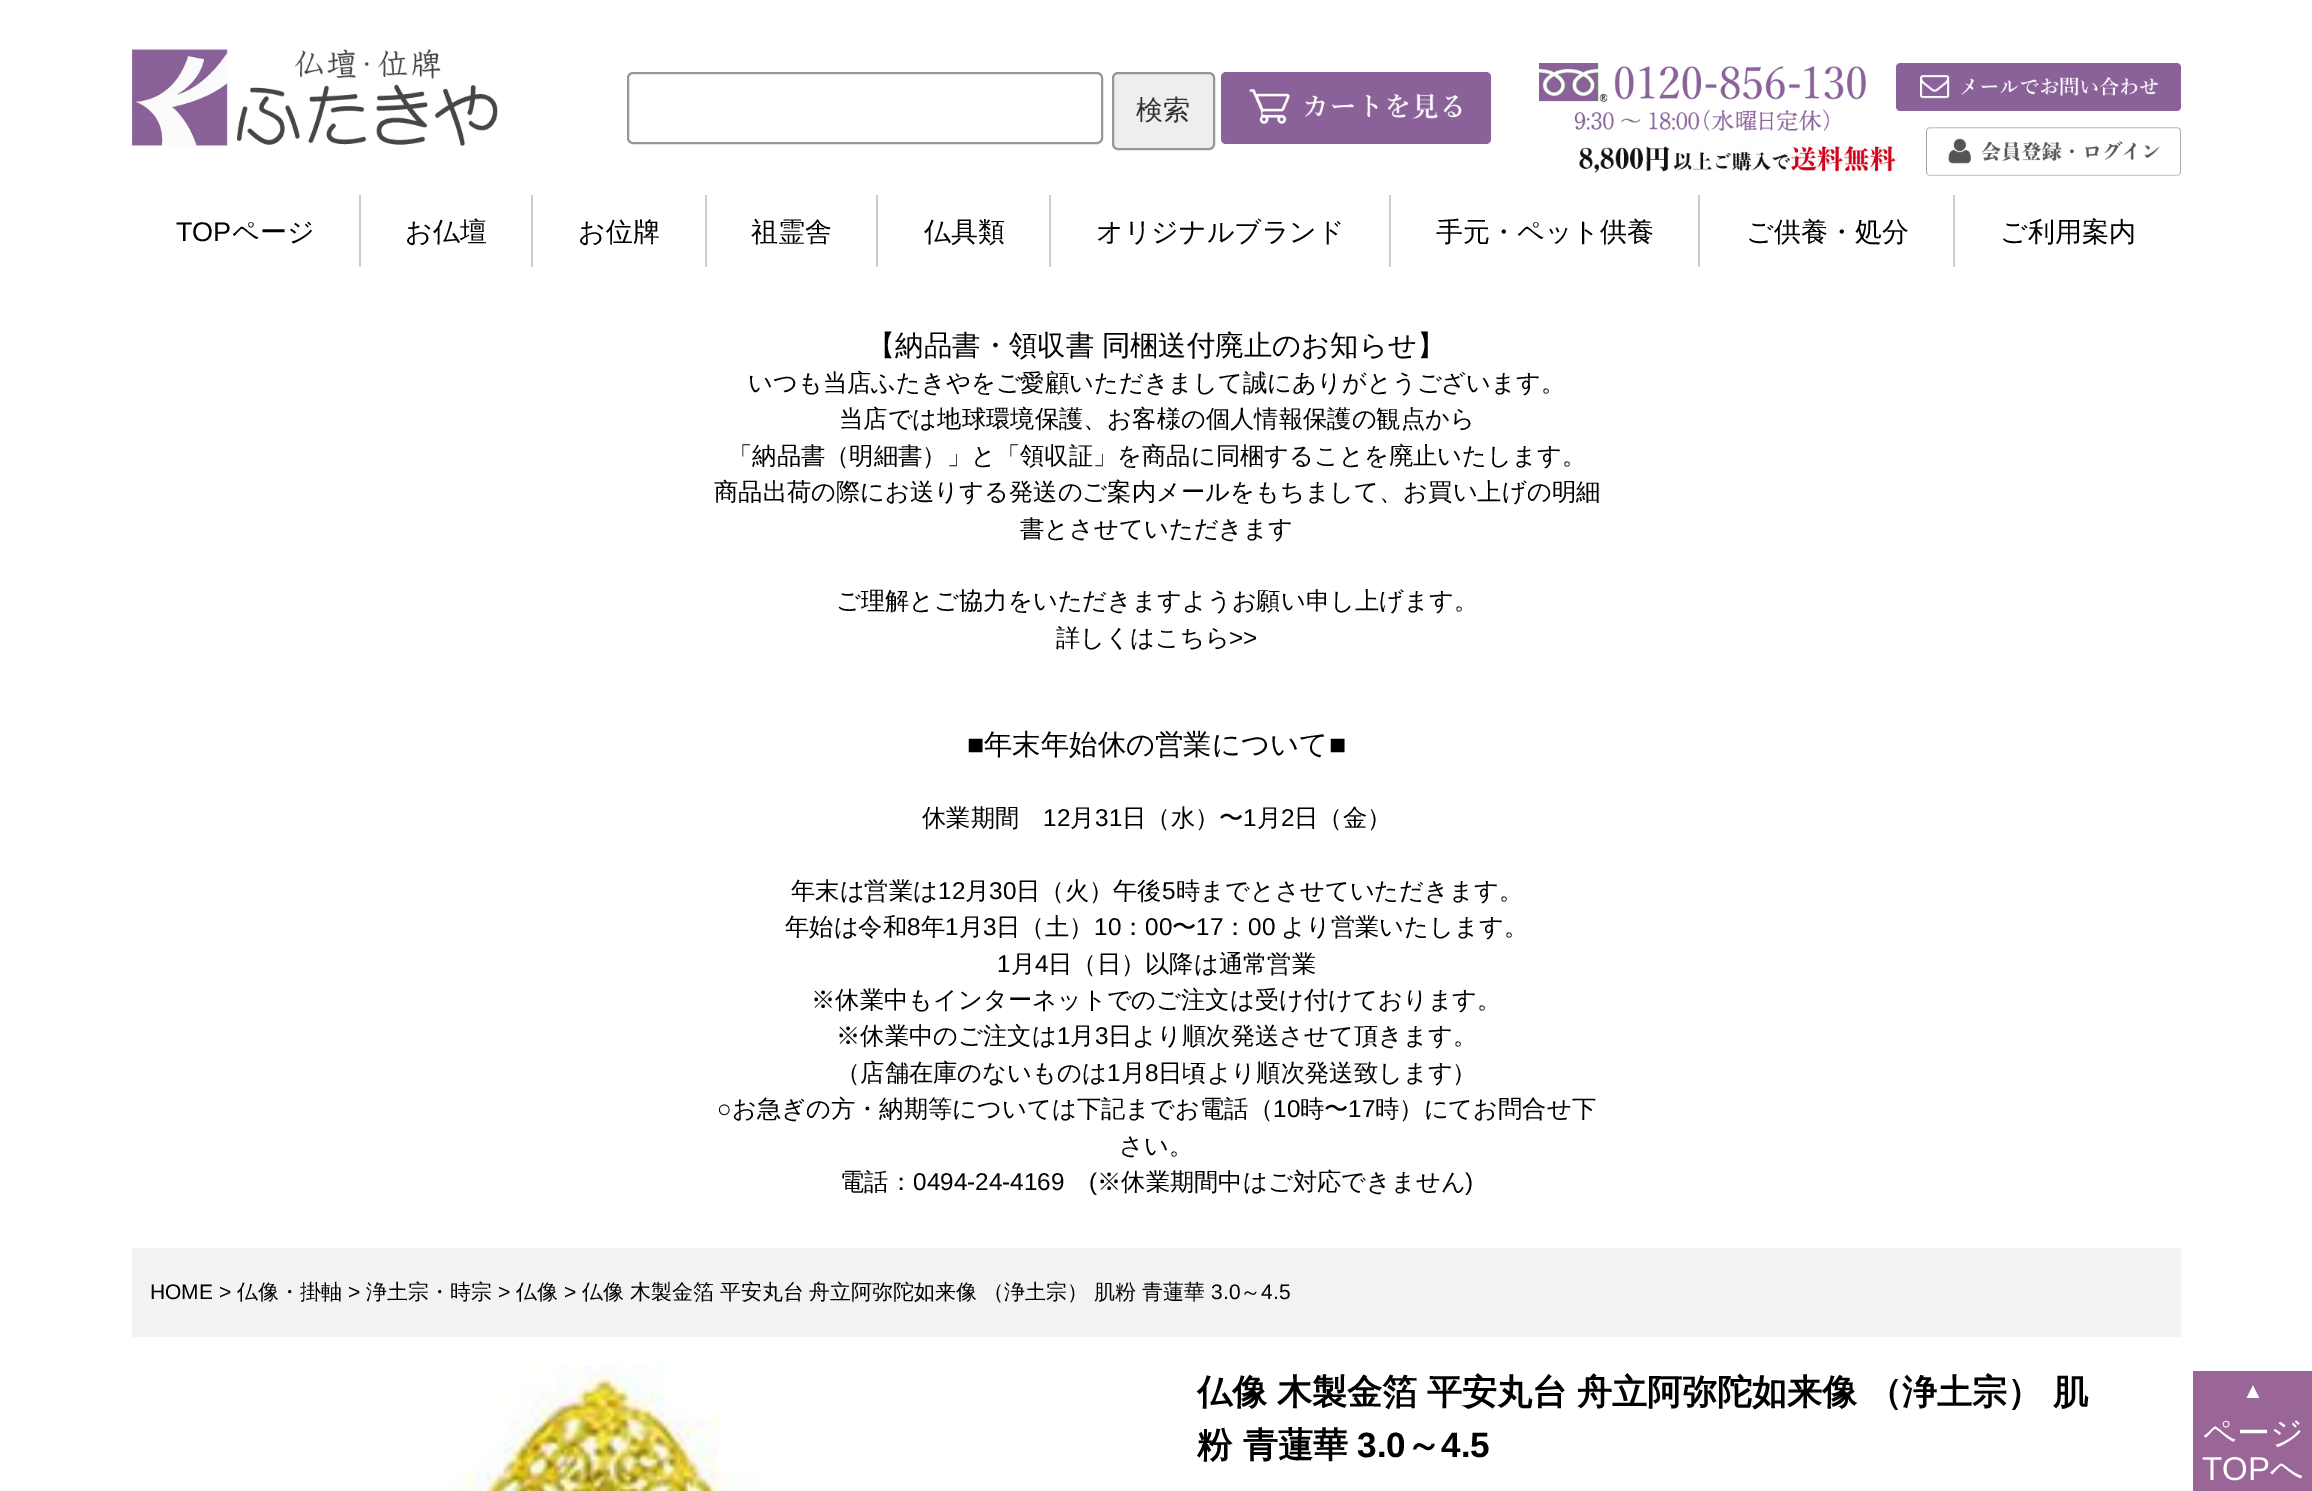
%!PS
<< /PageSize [2312 1491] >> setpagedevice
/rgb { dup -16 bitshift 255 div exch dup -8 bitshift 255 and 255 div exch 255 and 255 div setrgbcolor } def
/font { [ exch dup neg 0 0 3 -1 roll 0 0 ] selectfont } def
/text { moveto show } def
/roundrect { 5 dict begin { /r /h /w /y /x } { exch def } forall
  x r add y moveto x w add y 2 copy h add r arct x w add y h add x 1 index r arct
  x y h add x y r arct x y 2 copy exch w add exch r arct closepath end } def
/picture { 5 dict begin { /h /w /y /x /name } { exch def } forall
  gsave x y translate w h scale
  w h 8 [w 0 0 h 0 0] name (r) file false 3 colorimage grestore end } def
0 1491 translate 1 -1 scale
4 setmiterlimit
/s1 { /WenQuanYiZenHei-Medium 27 font 16#333333 rgb } def
/s2 { /LiberationSans-Regular 27 font 16#000000 rgb } def
/s3 { /WenQuanYiZenHei-Medium 27 font 16#000000 rgb } def
/s4 { /WenQuanYiZenHei-Medium 24.3 font 16#000000 rgb } def
/s5 { /LiberationSans-Regular 24.3 font 16#000000 rgb } def
/s6 { /LiberationSans-Regular 28.4 font 16#000000 rgb } def
/s7 { /WenQuanYiZenHei-Medium 28.4 font 16#000000 rgb } def
/s8 { /LiberationSans-Regular 21 font 16#000000 rgb } def
/s9 { /WenQuanYiZenHei-Medium 21 font 16#000000 rgb } def
/s10 { /WenQuanYiZenHei-Bold 35.1 font 16#000000 rgb } def
/s11 { /LiberationSans-Bold 35.1 font 16#000000 rgb } def
/s12 { /LiberationSans-Regular 22 font 16#FFFFFF rgb } def
/s13 { /WenQuanYiZenHei-Medium 33 font 16#FFFFFF rgb } def
/s14 { /LiberationSans-Regular 33 font 16#FFFFFF rgb } def
16#FFFFFF rgb
0 0 2312 1491 rectfill
(pic1.raw) 132 49 366 97 picture
16#979797 rgb
2 setlinewidth
628 73 474 70 5 roundrect stroke
16#EEEEEE rgb
1113 73 101 76 5 roundrect gsave fill grestore
16#979797 rgb
stroke
s1
(検索) 1136 119 text
(pic2.raw) 1221 72 270 72 picture
(pic3.raw) 1539 63 327 68 picture
(pic4.raw) 1896 63 285 48 picture
(pic5.raw) 1579 145 317 28 picture
(pic6.raw) 1926 127 255 49 picture
16#CCCCCC rgb
359 195 2 72 rectfill
s2
(TOP) 176 241 text
s3
(ページ) 232 241 text
16#CCCCCC rgb
531 195 2 72 rectfill
s3
(お仏壇) 405 241 text
16#CCCCCC rgb
705 195 2 72 rectfill
s3
(お位牌) 578 241 text
16#CCCCCC rgb
876 195 2 72 rectfill
s3
(祖霊舎) 751 241 text
16#CCCCCC rgb
1049 195 2 72 rectfill
s3
(仏具類) 924 241 text
16#CCCCCC rgb
1389 195 2 72 rectfill
s3
(オリジナルブランド) 1096 241 text
16#CCCCCC rgb
1698 195 2 72 rectfill
s3
(手元・ペット供養) 1436 241 text
16#CCCCCC rgb
1953 195 2 72 rectfill
s3
(ご供養・処分) 1746 241 text
(ご利用案内) 2000 241 text
/WenQuanYiZenHei-Medium 28.4 font
867 355 moveto -1 0 32 (【納品書・領収書 同梱送付廃止のお知らせ】) widthshow
s4
(いつも当店ふたきやをご愛顧いただきまして誠にありがとうございます。) 748 391 text
(当店では地球環境保護、お客様の個人情報保護の観点から) 839 427 text
(「納品書（明細書）」と「領収証」を商品に同梱することを廃止いたします。) 728 464 text
(商品出荷の際にお送りする発送のご案内メールをもちまして、お買い上げの明細) 714 500 text
(書とさせていただきます) 1020 537 text
(ご理解とご協力をいただきますようお願い申し上げます。) 836 609 text
(詳しくはこちら) 1056 646 text
s5
(>>) 1229 646 text
s6
(■) 967 754 text
s7
(年末年始休の営業について) 984 754 text
s6
(■) 1329 754 text
s4
(休業期間) 922 826 text
s5
(12) 1043 826 text
s4
(月) 1070 826 text
s5
(31) 1095 826 text
s4
(日（水）〜) 1122 826 text
s5
(1) 1243 826 text
s4
(月) 1257 826 text
s5
(2) 1281 826 text
s4
(日（金）) 1294 826 text
(年末は営業は) 791 899 text
s5
(12) 938 899 text
s4
(月) 965 899 text
s5
(30) 989 899 text
s4
(日（火）午後) 1016 899 text
s5
(5) 1162 899 text
s4
(時までとさせていただきます。) 1176 899 text
(年始は令和) 785 935 text
s5
(8) 907 935 text
s4
(年) 921 935 text
s5
(1) 945 935 text
s4
(月) 959 935 text
s5
(3) 983 935 text
s4
(日（土）) 996 935 text
s5
(10) 1094 935 text
s4
(：) 1121 935 text
s5
(00) 1145 935 text
s4
(〜) 1172 935 text
s5
(17) 1196 935 text
s4
(：) 1223 935 text
s5
(00) 1248 935 text
s4
(より営業いたします。) 1281 935 text
s5
(1) 997 972 text
s4
(月) 1011 972 text
s5
(4) 1035 972 text
s4
(日（日）以降は通常営業) 1048 972 text
(※休業中もインターネットでのご注文は受け付けております。) 811 1008 text
(※休業中のご注文は) 836 1044 text
s5
(1) 1057 1044 text
s4
(月) 1070 1044 text
s5
(3) 1095 1044 text
s4
(日より順次発送させて頂きます。) 1108 1044 text
(（店舗在庫のないものは) 836 1081 text
s5
(1) 1107 1081 text
s4
(月) 1121 1081 text
s5
(8) 1145 1081 text
s4
(日頃より順次発送致します）) 1158 1081 text
s5
(○) 717 1117 text
s4
(お急ぎの方・納期等については下記までお電話（) 732 1117 text
s5
(10) 1273 1117 text
s4
(時〜) 1300 1117 text
s5
(17) 1348 1117 text
s4
(時）にてお問合せ下) 1375 1117 text
(さい。) 1119 1154 text
(電話：) 840 1190 text
s5
(0494-24-4169) 913 1190 text
(\() 1089 1190 text
s4
(※休業期間中はご対応できません) 1097 1190 text
s5
(\)) 1465 1190 text
16#F3F3F3 rgb
132 1248 2049 89 rectfill
s8
(HOME >) 150 1299 text
s9
(仏像・掛軸) 237 1299 text
s8
(>) 348 1299 text
s9
(浄土宗・時宗) 366 1299 text
s8
(>) 498 1299 text
s9
(仏像) 516 1299 text
s8
(>) 564 1299 text
/WenQuanYiZenHei-Medium 21 font
582 1299 moveto -0.5 0 32 (仏像 木製金箔 平安丸台 舟立阿弥陀如来像 （浄土宗）) widthshow
(肌粉 青蓮華) 1094 1299 text
s8
(3.0) 1211 1299 text
s9
(～) 1240 1299 text
s8
(4.5) 1261 1299 text
(pic7.raw) 449 1366 309 125 picture
/WenQuanYiZenHei-Bold 35.1 font
1197 1404 moveto -1 0 32 (仏像 木製金箔 平安丸台 舟立阿弥陀如来像 （浄土宗）) widthshow
(肌) 2053 1404 text
(粉 青蓮華) 1197 1457 text
s11
(3.0) 1357 1457 text
s10
(～) 1406 1457 text
s11
(4.5) 1441 1457 text
16#9A6697 rgb
2193 1371 119 120 rectfill
s12
(▲) 2242 1398 text
s13
(ページ) 2203 1444 text
s14
(TOP) 2202 1480 text
s13
(へ) 2270 1480 text
showpage
